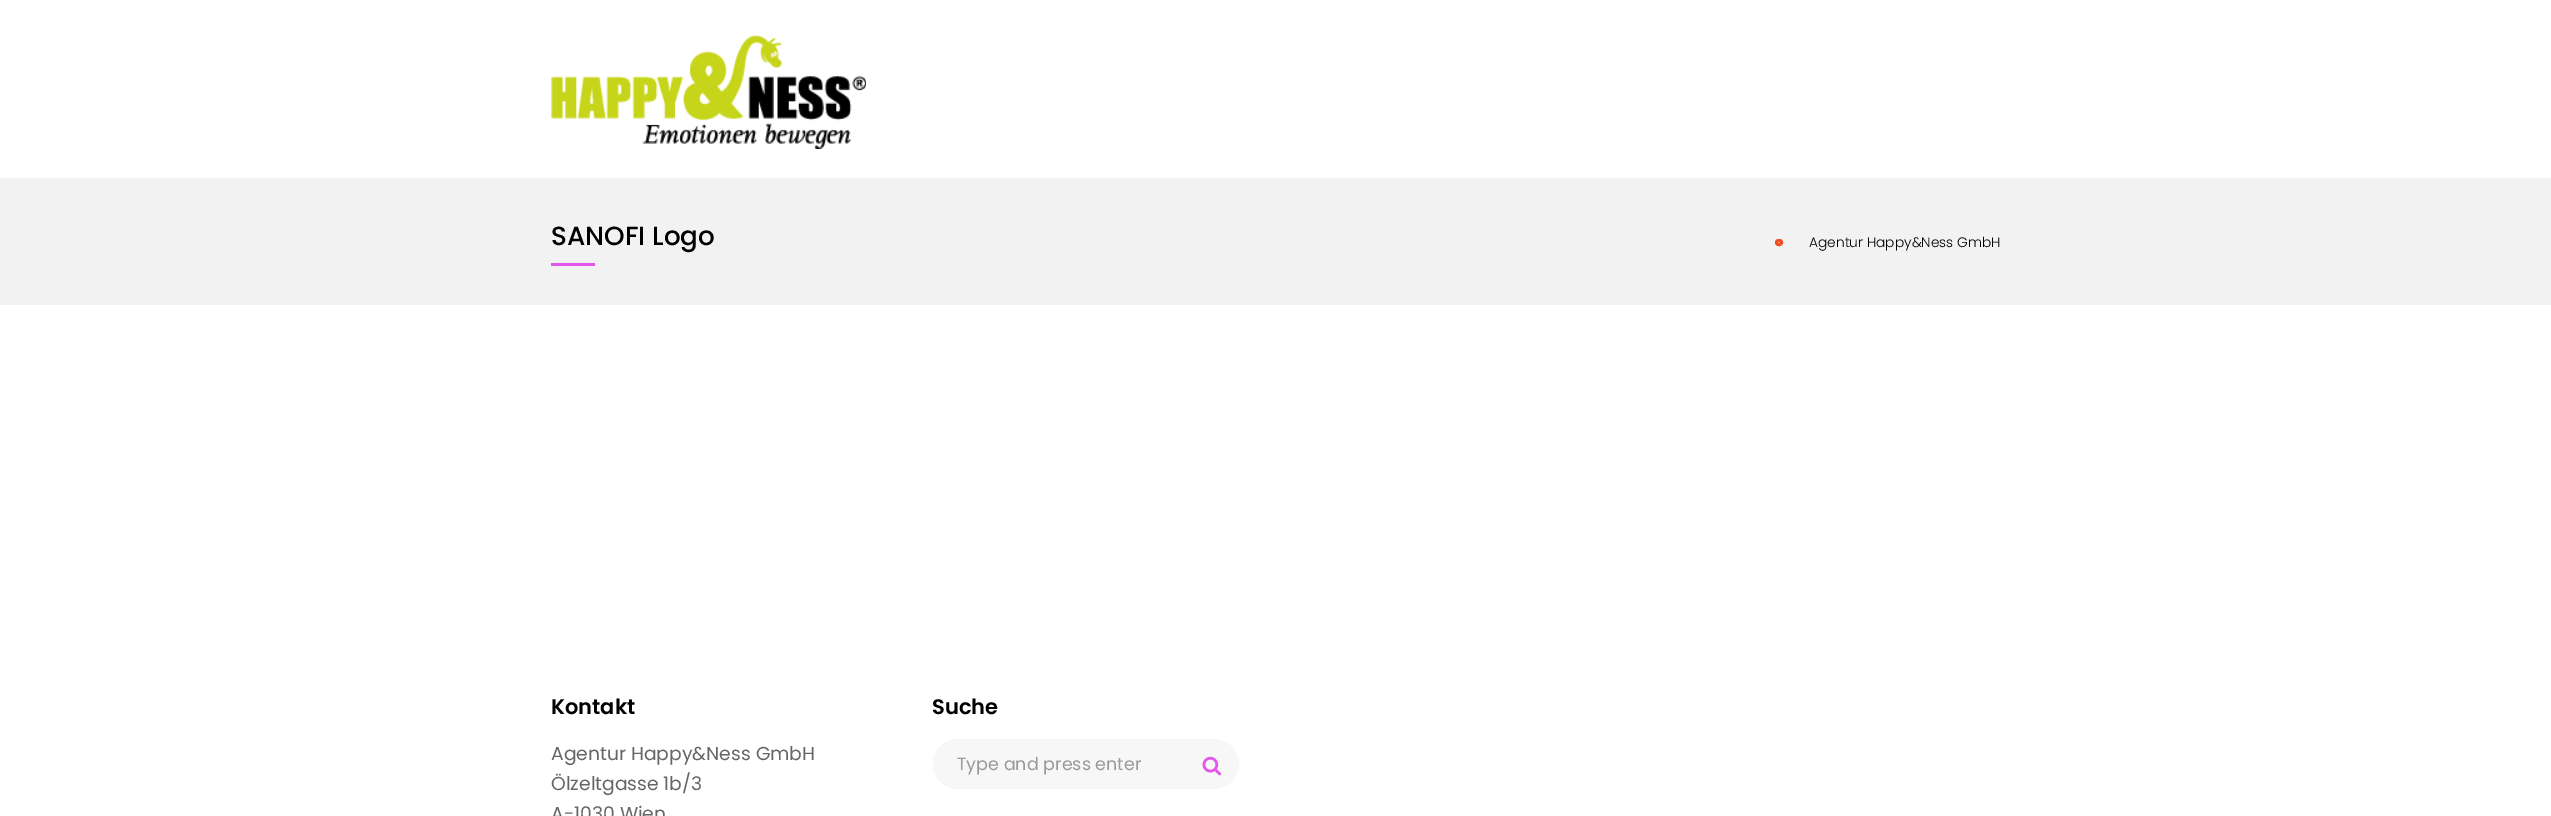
%!PS
<< /PageSize [2551 816] >> setpagedevice
/rgb { dup -16 bitshift 255 div exch dup -8 bitshift 255 and 255 div exch 255 and 255 div setrgbcolor } def
/font { [ exch dup neg 0 0 3 -1 roll 0 0 ] selectfont } def
/text { moveto show } def
/roundrect { 5 dict begin { /r /h /w /y /x } { exch def } forall
  x r add y moveto x w add y 2 copy h add r arct x w add y h add x 1 index r arct
  x y h add x y r arct x y 2 copy exch w add exch r arct closepath end } def
/picture { 5 dict begin { /h /w /y /x /name } { exch def } forall
  gsave x y translate w h scale
  w h 8 [w 0 0 h 0 0] name (r) file false 3 colorimage grestore end } def
0 816 translate 1 -1 scale
4 setmiterlimit
/s1 { /Poppins-Medium 26.25 font 16#000000 rgb } def
/s2 { /Poppins-Light 13.75 font 16#000000 rgb } def
/s3 { /Poppins-SemiBold 21 font 16#000000 rgb } def
/s4 { /Poppins-Regular 18.75 font 16#666666 rgb } def
/s5 { /Poppins-Regular 17.5 font 16#999999 rgb } def
16#FFFFFF rgb
0 0 2551 816 rectfill
(pic1.raw) 551 35 315 114 picture
16#F2F2F2 rgb
0 178 2551 127 rectfill
s1
(SANOFI Logo) 551 245 text
16#E356EA rgb
551 263 44 3 rectfill
16#F04E23 rgb
3 setlinewidth
1776.5 240.5 5 4 2 roundrect stroke
s2
(Agentur Happy&Ness GmbH) 1809 247 text
s3
(Kontakt) 551 714 text
s4
(Agentur Happy&Ness GmbH) 551 760 text
(Ölzeltgasse 1b/3) 551 790 text
(A-1030 Wien) 551 820 text
s3
(Suche) 932 714 text
16#F7F7F7 rgb
933 739 306 50 25 roundrect fill
s5
(Type and press enter) 957 770 text
(pic2.raw) 1202 756 19 20 picture
showpage
